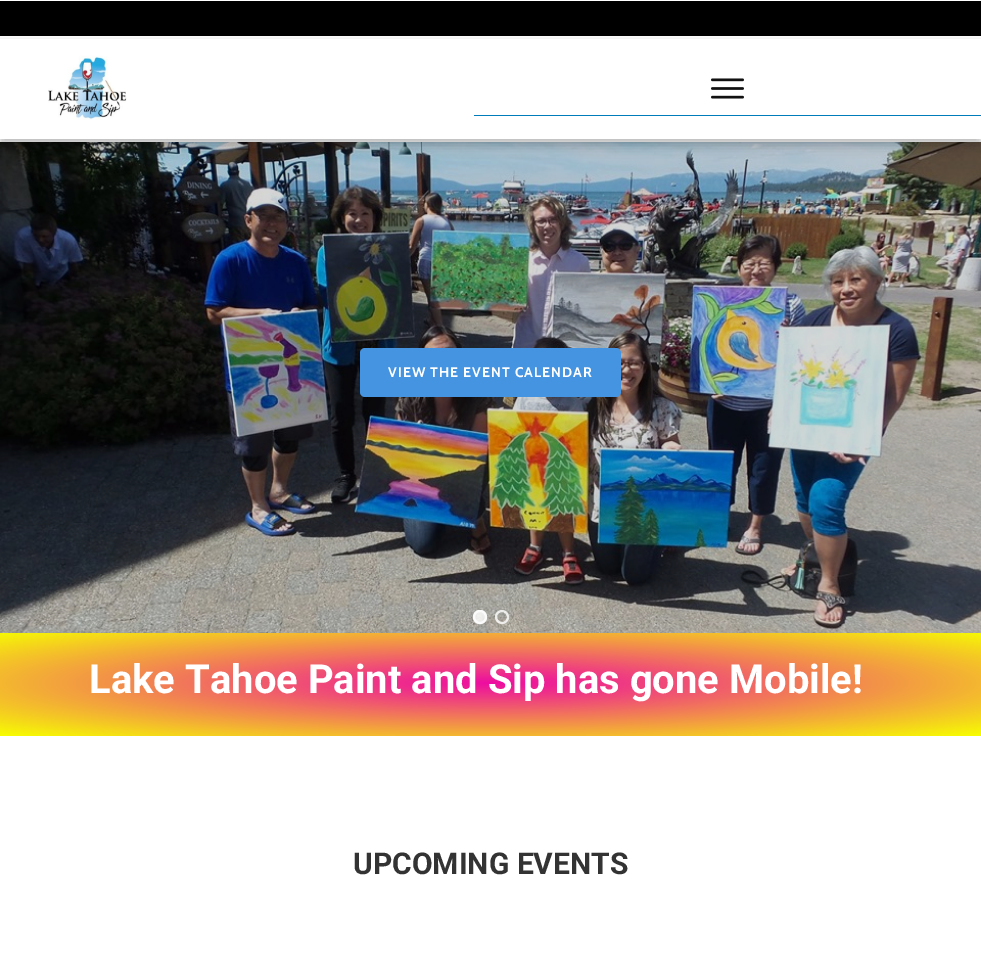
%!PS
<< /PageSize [981 970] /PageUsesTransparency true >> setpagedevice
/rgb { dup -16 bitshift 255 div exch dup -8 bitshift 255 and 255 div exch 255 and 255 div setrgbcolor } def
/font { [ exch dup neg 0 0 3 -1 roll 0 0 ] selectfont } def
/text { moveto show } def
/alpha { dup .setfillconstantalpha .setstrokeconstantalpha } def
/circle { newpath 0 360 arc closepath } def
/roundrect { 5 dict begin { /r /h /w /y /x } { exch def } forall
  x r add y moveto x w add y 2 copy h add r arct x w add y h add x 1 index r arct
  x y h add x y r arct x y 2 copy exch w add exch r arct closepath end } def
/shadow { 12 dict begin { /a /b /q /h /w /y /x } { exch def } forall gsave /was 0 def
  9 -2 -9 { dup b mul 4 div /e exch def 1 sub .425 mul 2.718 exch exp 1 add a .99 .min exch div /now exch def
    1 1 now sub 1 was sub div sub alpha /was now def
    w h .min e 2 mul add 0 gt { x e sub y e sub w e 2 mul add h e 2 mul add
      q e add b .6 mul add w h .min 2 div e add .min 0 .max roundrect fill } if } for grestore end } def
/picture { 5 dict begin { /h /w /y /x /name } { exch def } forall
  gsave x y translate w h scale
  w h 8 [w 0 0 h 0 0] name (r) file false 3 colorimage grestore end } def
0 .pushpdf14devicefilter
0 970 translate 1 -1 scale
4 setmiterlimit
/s1 { /Roboto-Bold 40 font 16#FFFFFF rgb } def
/s2 { /Roboto-Bold 30 font 16#333333 rgb } def
16#FFFFFF rgb
0 0 981 970 rectfill
16#000000 rgb
0 1 981 35 rectfill
(pic3.raw) 0 142 981 491 picture
gsave
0 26 moveto 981 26 lineto 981 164 lineto 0 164 lineto closepath 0 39 moveto 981 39 lineto 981 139 lineto 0 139 lineto closepath eoclip newpath
0 45 981 100 0 6 0.27 shadow
grestore
(pic1.raw) 48 55 79 65 picture
16#007CBA rgb
474 115 507 1 rectfill
(pic2.raw) 711 78 33 21 picture
16#4594E1 rgb
360 348 261 49 5 roundrect fill
/Cabin-Bold 14 font
16#FFFFFF rgb
388 377 moveto 1 0 (VIEW THE EVENT CALENDAR) ashow
0.8 alpha
480 617 7 circle fill
2 setlinewidth
480 617 6 circle stroke
502 617 6 circle stroke
1 alpha
gsave 0 633 moveto 981 633 lineto 981 736 lineto 0 736 lineto closepath clip newpath 491 683 translate 694 75 scale
<< /ShadingType 3 /ColorSpace /DeviceRGB /Coords [0 0 0 0 0 1] /Extend [true true] /Function << /FunctionType 2 /Domain [0 1] /C0 [0.929 0.047 0.635] /C1 [0.969 1 0] /N 1 >> >> shfill grestore
s1
(Lake Tahoe Paint and Sip has gone Mobile!) 89 693 text
s2
(UPCOMING EVENTS) 353 874 text
.poppdf14devicefilter showpage
